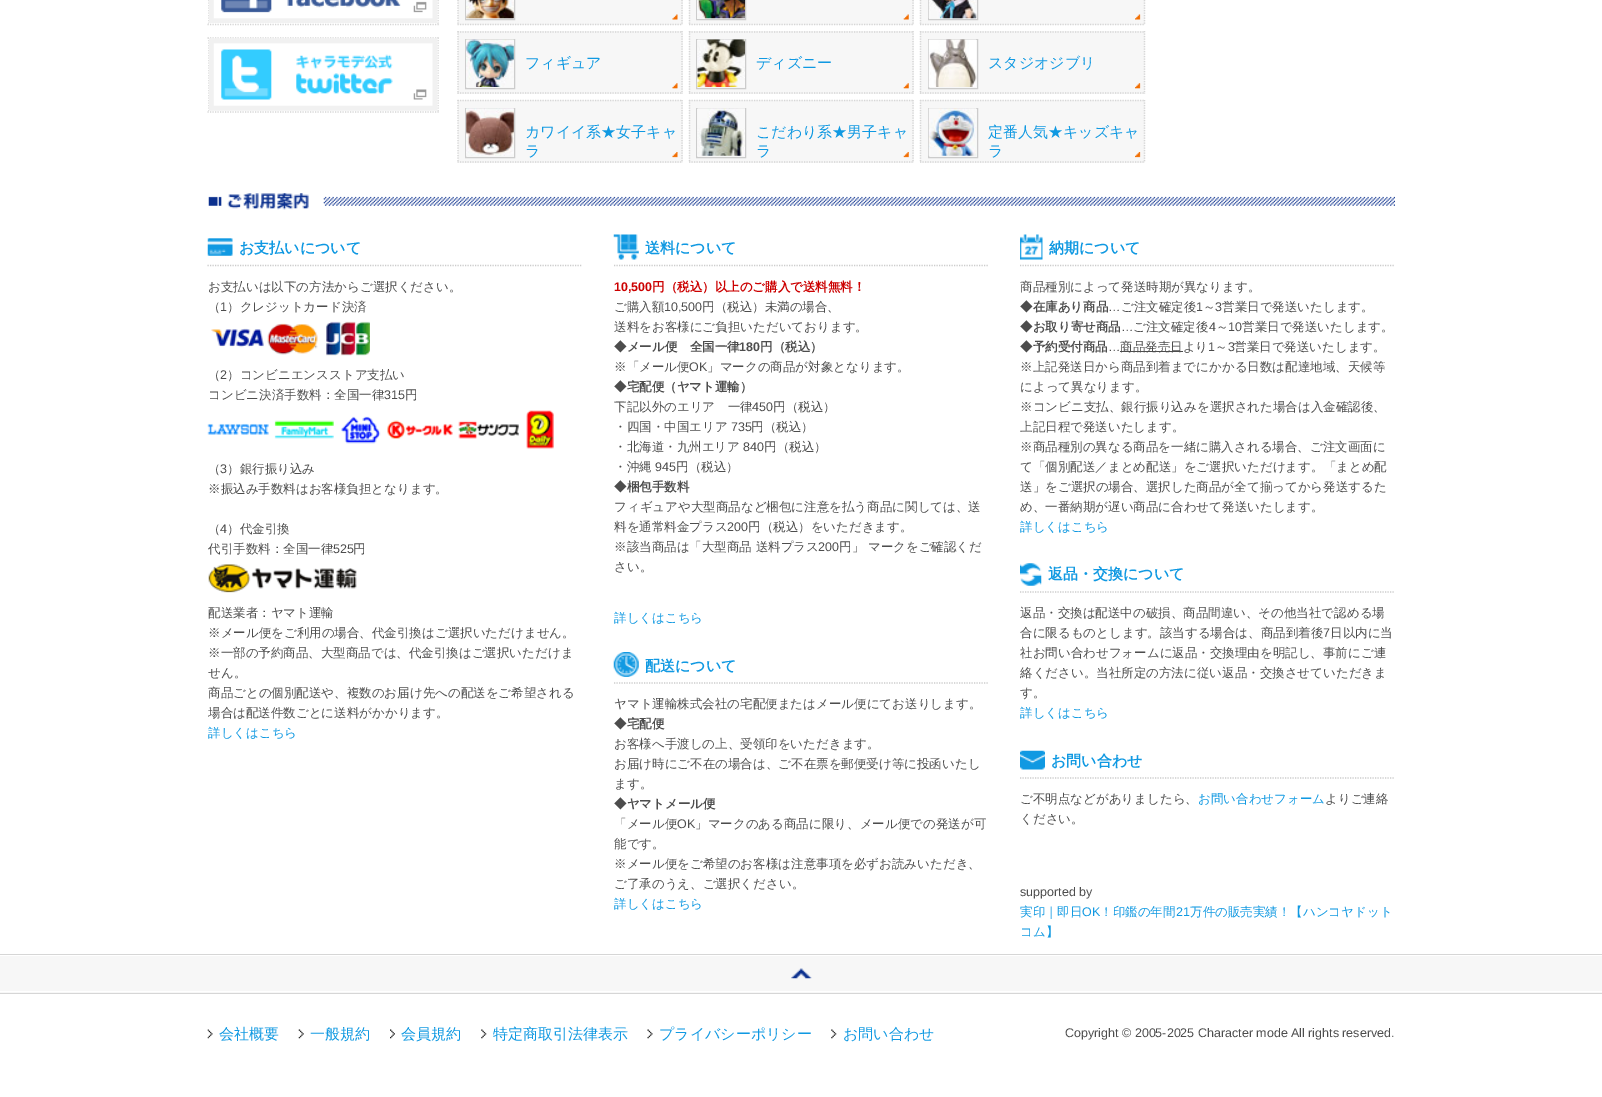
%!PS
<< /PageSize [1602 1097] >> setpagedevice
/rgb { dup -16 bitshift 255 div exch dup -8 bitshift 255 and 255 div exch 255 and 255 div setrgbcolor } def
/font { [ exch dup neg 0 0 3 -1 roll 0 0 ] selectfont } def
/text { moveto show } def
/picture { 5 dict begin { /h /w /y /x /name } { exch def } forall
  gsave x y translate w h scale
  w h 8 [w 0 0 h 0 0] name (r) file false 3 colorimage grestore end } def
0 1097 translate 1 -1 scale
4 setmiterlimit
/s1 { /WenQuanYiZenHei-Medium 15 font 16#1099E2 rgb } def
/s2 { /WenQuanYiZenHei-Bold 15 font 16#1099E2 rgb } def
/s3 { /WenQuanYiZenHei-Medium 12.5 font 16#4D4D4D rgb } def
/s4 { /LiberationSans-Regular 12.5 font 16#4D4D4D rgb } def
/s5 { /WenQuanYiZenHei-Medium 12.5 font 16#1099E2 rgb } def
/s6 { /LiberationSans-Bold 12.5 font 16#CC0000 rgb } def
/s7 { /WenQuanYiZenHei-Bold 12.5 font 16#CC0000 rgb } def
/s8 { /WenQuanYiZenHei-Bold 12.5 font 16#4D4D4D rgb } def
/s9 { /LiberationSans-Bold 12.5 font 16#4D4D4D rgb } def
/s10 { /LiberationSans-Regular 12.5 font 16#1099E2 rgb } def
16#FFFFFF rgb
0 0 1602 1097 rectfill
16#D6D6D6 rgb
1.2 setlinewidth
[1.25 1.25] 0 setdash
438 -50 moveto 438 25 lineto stroke
207.5 24.5 moveto 439 24.5 lineto stroke
gsave
208 0 1187 954 rectclip
208 -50 moveto 208 25 lineto stroke
grestore
(pic1.raw) 209 0 229 23 picture
207.5 38 moveto 439 38 lineto stroke
438 37.5 moveto 438 112.5 lineto stroke
207.5 112 moveto 439 112 lineto stroke
gsave
208 0 1187 954 rectclip
208 37.5 moveto 208 112.5 lineto stroke
grestore
(pic2.raw) 209 38 229 73 picture
16#F7F7F7 rgb
458 0 225 25 rectfill
(pic3.raw) 672 14 6 6 picture
16#D6D6D6 rgb
682 -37.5 moveto 682 25 lineto stroke
457.5 24.5 moveto 682.5 24.5 lineto stroke
458 -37.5 moveto 458 25 lineto stroke
16#CCCCCC rgb
1 setlinewidth
[] 0 setdash
465.5 -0.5 49 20 rectstroke
(pic4.raw) 466 0 48 19 picture
16#F7F7F7 rgb
689 0 225 25 rectfill
(pic5.raw) 903 14 6 6 picture
16#D6D6D6 rgb
1.2 setlinewidth
[1.25 1.25] 0 setdash
913 -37.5 moveto 913 25 lineto stroke
689 24.5 moveto 914 24.5 lineto stroke
689.5 -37.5 moveto 689.5 25 lineto stroke
16#CCCCCC rgb
1 setlinewidth
[] 0 setdash
696.5 -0.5 49 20 rectstroke
(pic6.raw) 697 0 48 19 picture
16#F7F7F7 rgb
920 0 225 25 rectfill
(pic7.raw) 1135 14 6 6 picture
16#D6D6D6 rgb
1.2 setlinewidth
[1.25 1.25] 0 setdash
1144.5 -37.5 moveto 1144.5 25 lineto stroke
920 24.5 moveto 1145 24.5 lineto stroke
920.5 -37.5 moveto 920.5 25 lineto stroke
16#CCCCCC rgb
1 setlinewidth
[] 0 setdash
928.5 -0.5 49 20 rectstroke
(pic8.raw) 928 0 49 19 picture
16#F7F7F7 rgb
458 31 225 63 rectfill
(pic9.raw) 672 83 6 6 picture
16#D6D6D6 rgb
1.2 setlinewidth
[1.25 1.25] 0 setdash
457.5 32 moveto 682.5 32 lineto stroke
682 31 moveto 682 94 lineto stroke
457.5 93 moveto 682.5 93 lineto stroke
458 31 moveto 458 94 lineto stroke
16#CCCCCC rgb
1 setlinewidth
[] 0 setdash
465.5 39.5 49 49 rectstroke
(pic10.raw) 466 39 48 48 picture
s1
(フィギュア) 525 68 text
16#F7F7F7 rgb
689 31 225 63 rectfill
(pic11.raw) 903 83 6 6 picture
16#D6D6D6 rgb
1.2 setlinewidth
[1.25 1.25] 0 setdash
689 32 moveto 914 32 lineto stroke
913 31 moveto 913 94 lineto stroke
689 93 moveto 914 93 lineto stroke
689.5 31 moveto 689.5 94 lineto stroke
16#CCCCCC rgb
1 setlinewidth
[] 0 setdash
696.5 39.5 49 49 rectstroke
(pic12.raw) 697 39 48 48 picture
s1
(ディズニー) 756 68 text
16#F7F7F7 rgb
920 31 225 63 rectfill
(pic13.raw) 1135 83 6 6 picture
16#D6D6D6 rgb
1.2 setlinewidth
[1.25 1.25] 0 setdash
920 32 moveto 1145 32 lineto stroke
1144.5 31 moveto 1144.5 94 lineto stroke
920 93 moveto 1145 93 lineto stroke
920.5 31 moveto 920.5 94 lineto stroke
16#CCCCCC rgb
1 setlinewidth
[] 0 setdash
928.5 39.5 49 49 rectstroke
(pic14.raw) 928 39 49 48 picture
s1
(スタジオジブリ) 988 68 text
16#F7F7F7 rgb
458 100 225 63 rectfill
(pic15.raw) 672 152 6 6 picture
16#D6D6D6 rgb
1.2 setlinewidth
[1.25 1.25] 0 setdash
457.5 100.5 moveto 682.5 100.5 lineto stroke
682 100 moveto 682 162.5 lineto stroke
457.5 162 moveto 682.5 162 lineto stroke
458 100 moveto 458 162.5 lineto stroke
16#CCCCCC rgb
1 setlinewidth
[] 0 setdash
465.5 108.5 49 49 rectstroke
(pic16.raw) 466 108 48 48 picture
s1
(カワイイ系★女子キャ) 525 137 text
(ラ) 525 156 text
16#F7F7F7 rgb
689 100 225 63 rectfill
(pic17.raw) 903 152 6 6 picture
16#D6D6D6 rgb
1.2 setlinewidth
[1.25 1.25] 0 setdash
689 100.5 moveto 914 100.5 lineto stroke
913 100 moveto 913 162.5 lineto stroke
689 162 moveto 914 162 lineto stroke
689.5 100 moveto 689.5 162.5 lineto stroke
16#CCCCCC rgb
1 setlinewidth
[] 0 setdash
696.5 108.5 49 49 rectstroke
(pic18.raw) 697 108 48 48 picture
s1
(こだわり系★男子キャ) 756 137 text
(ラ) 756 156 text
16#F7F7F7 rgb
920 100 225 63 rectfill
(pic19.raw) 1135 152 6 6 picture
16#D6D6D6 rgb
1.2 setlinewidth
[1.25 1.25] 0 setdash
920 100.5 moveto 1145 100.5 lineto stroke
1144.5 100 moveto 1144.5 162.5 lineto stroke
920 162 moveto 1145 162 lineto stroke
920.5 100 moveto 920.5 162.5 lineto stroke
16#CCCCCC rgb
1 setlinewidth
[] 0 setdash
928.5 108.5 49 49 rectstroke
(pic20.raw) 928 108 49 48 picture
s1
(定番人気★キッズキャ) 988 137 text
(ラ) 988 156 text
(pic21.raw) 208 193 1187 17 picture
16#CCCCCC rgb
1.2 setlinewidth
[1.25 1.25] 0 setdash
207.5 265.5 moveto 582.5 265.5 lineto stroke
(pic22.raw) 207 238 26 18 picture
s2
(お支払いについて) 239 253 text
s3
(お支払いは以下の方法からご選択ください。) 208 291 text
(（) 208 311 text
s4
(1) 220 311 text
s3
(）クレジットカード決済) 227 311 text
(pic23.raw) 211 321 159 35 picture
(（) 208 379 text
s4
(2) 220 379 text
s3
(）コンビニエンスストア支払い) 227 379 text
(コンビニ決済手数料：全国一律) 208 399 text
s4
(315) 384 399 text
s3
(円) 405 399 text
(pic24.raw) 207 410 347 39 picture
(（) 208 473 text
s4
(3) 220 473 text
s3
(）銀行振り込み) 227 473 text
(※振込み手数料はお客様負担となります。) 208 493 text
(（) 208 533 text
s4
(4) 220 533 text
s3
(）代金引換) 227 533 text
(代引手数料：全国一律) 208 553 text
s4
(525) 333 553 text
s3
(円) 353 553 text
(pic25.raw) 208 564 149 29 picture
(配送業者：ヤマト運輸) 208 617 text
(※メール便をご利用の場合、代金引換はご選択いただけません。) 208 637 text
(※一部の予約商品、大型商品では、代金引換はご選択いただけま) 208 657 text
(せん。) 208 677 text
(商品ごとの個別配送や、複数のお届け先への配送をご希望される) 208 697 text
gsave
208 0 1187 954 rectclip
(場合は配送件数ごとに送料がかかります。) 208 717 text
s5
(詳しくはこちら) 208 737 text
grestore
16#CCCCCC rgb
614 265.5 moveto 989 265.5 lineto stroke
(pic26.raw) 613 234 26 26 picture
s2
(送料について) 645 253 text
s6
(10,500) 614 291 text
s7
(円（税込）以上のご購入で送料無料！) 652 291 text
s3
(ご購入額) 614 311 text
s4
(10,500) 664 311 text
s3
(円（税込）未満の場合、) 702 311 text
(送料をお客様にご負担いただいております。) 614 331 text
s8
(◆メール便　全国一律) 614 351 text
s9
(180) 739 351 text
s8
(円（税込）) 760 351 text
s3
(※「メール便) 614 371 text
s4
(OK) 689 371 text
s3
(」マークの商品が対象となります。) 707 371 text
s8
(◆宅配便（ヤマト運輸）) 614 391 text
s3
(下記以外のエリア　一律) 614 411 text
s4
(450) 752 411 text
s3
(円（税込）) 773 411 text
(・四国・中国エリア) 614 431 text
s4
(735) 731 431 text
s3
(円（税込）) 751 431 text
(・北海道・九州エリア) 614 451 text
s4
(840) 743 451 text
s3
(円（税込）) 764 451 text
(・沖縄) 614 471 text
s4
(945) 655 471 text
s3
(円（税込）) 676 471 text
s8
(◆梱包手数料) 614 491 text
s3
(フィギュアや大型商品など梱包に注意を払う商品に関しては、送) 614 511 text
(料を通常料金プラス) 614 531 text
s4
(200) 727 531 text
s3
(円（税込）をいただきます。) 748 531 text
(※該当商品は「大型商品 送料プラス) 614 551 text
s4
(200) 818 551 text
s3
(円」 マークをご確認くだ) 839 551 text
(さい。) 614 571 text
s5
(詳しくはこちら) 614 622 text
16#CCCCCC rgb
614 683 moveto 989 683 lineto stroke
(pic27.raw) 613 652 26 25 picture
s2
(配送について) 645 671 text
s3
(ヤマト運輸株式会社の宅配便またはメール便にてお送りします。) 614 708 text
s8
(◆宅配便) 614 728 text
s3
(お客様へ手渡しの上、受領印をいただきます。) 614 748 text
(お届け時にご不在の場合は、ご不在票を郵便受け等に投函いたし) 614 768 text
(ます。) 614 788 text
s8
(◆ヤマトメール便) 614 808 text
s3
(「メール便) 614 828 text
s4
(OK) 677 828 text
s3
(」マークのある商品に限り、メール便での発送が可) 695 828 text
(能です。) 614 848 text
(※メール便をご希望のお客様は注意事項を必ずお読みいただき、) 614 868 text
(ご了承のうえ、ご選択ください。) 614 888 text
s5
(詳しくはこちら) 614 908 text
16#CCCCCC rgb
1020 265.5 moveto 1395 265.5 lineto stroke
(pic28.raw) 1020 234 23 26 picture
s2
(納期について) 1049 253 text
s3
(商品種別によって発送時期が異なります。) 1020 291 text
s8
(◆在庫あり商品) 1020 311 text
s3
(ご注文確定後) 1121 311 text
s4
(1) 1196 311 text
s3
(～) 1203 311 text
s4
(3) 1215 311 text
s3
(営業日で発送いたします。) 1222 311 text
s4
(…) 1108 311 text
s8
(◆お取り寄せ商品) 1020 331 text
s3
(ご注文確定後) 1133 331 text
s4
(4) 1209 331 text
s3
(～) 1216 331 text
s4
(10) 1228 331 text
s3
(営業日で発送いたします。) 1242 331 text
s4
(…) 1121 331 text
s8
(◆予約受付商品) 1020 351 text
1120 351 63 1 rectfill
s3
(商品発売日より) 1120 351 text
s4
(1) 1208 351 text
s3
(～) 1215 351 text
s4
(3) 1228 351 text
s3
(営業日で発送いたします。) 1234 351 text
s4
(…) 1108 351 text
s3
(※上記発送日から商品到着までにかかる日数は配達地域、天候等) 1020 371 text
(によって異なります。) 1020 391 text
(※コンビニ支払、銀行振り込みを選択された場合は入金確認後、) 1020 411 text
(上記日程で発送いたします。) 1020 431 text
(※商品種別の異なる商品を一緒に購入される場合、ご注文画面に) 1020 451 text
(て「個別配送／まとめ配送」をご選択いただけます。「まとめ配) 1020 471 text
(送」をご選択の場合、選択した商品が全て揃ってから発送するた) 1020 491 text
(め、一番納期が遅い商品に合わせて発送いたします。) 1020 511 text
s5
(詳しくはこちら) 1020 531 text
16#CCCCCC rgb
1020 592 moveto 1395 592 lineto stroke
(pic29.raw) 1020 563 22 23 picture
s2
(返品・交換について) 1048 579 text
s3
(返品・交換は配送中の破損、商品間違い、その他当社で認める場) 1020 617 text
(合に限るものとします。該当する場合は、商品到着後) 1020 637 text
s4
(7) 1323 637 text
s3
(日以内に当) 1330 637 text
(社お問い合わせフォームに返品・交換理由を明記し、事前にご連) 1020 657 text
(絡ください。当社所定の方法に従い返品・交換させていただきま) 1020 677 text
(す。) 1020 697 text
s5
(詳しくはこちら) 1020 717 text
16#CCCCCC rgb
1020 778 moveto 1395 778 lineto stroke
(pic30.raw) 1020 750 25 20 picture
s2
(お問い合わせ) 1051 766 text
s3
(ご不明点などがありましたら、) 1020 803 text
s5
(お問い合わせフォーム) 1198 803 text
s3
(よりご連絡) 1325 803 text
(ください。) 1020 823 text
s4
(supported by) 1020 896 text
s5
(実印｜即日) 1020 916 text
s10
(OK) 1082 916 text
s5
(！印鑑の年間) 1100 916 text
s10
(21) 1176 916 text
s5
(万件の販売実績！【ハンコヤドット) 1190 916 text
(コム】) 1020 936 text
16#D6D6D6 rgb
0 954 1602 1 rectfill
0 993 1602 1 rectfill
16#F7F7F7 rgb
0 956 1602 37 rectfill
16#FFFFFF rgb
0 991 1602 1 rectfill
(pic31.raw) 791 968 21 11 picture
(pic32.raw) 207 1029 6 10 picture
s1
(会社概要) 219 1039 text
(pic33.raw) 298 1029 6 10 picture
(一般規約) 310 1039 text
(pic34.raw) 390 1029 5 10 picture
(会員規約) 401 1039 text
(pic35.raw) 481 1029 6 10 picture
(特定商取引法律表示) 493 1039 text
(pic36.raw) 647 1029 6 10 picture
(プライバシーポリシー) 659 1039 text
(pic35.raw) 831 1029 6 10 picture
(お問い合わせ) 843 1039 text
s4
(Copyright © 2005-2025 Character mode All rights reserved.) 1065 1037 text
showpage
